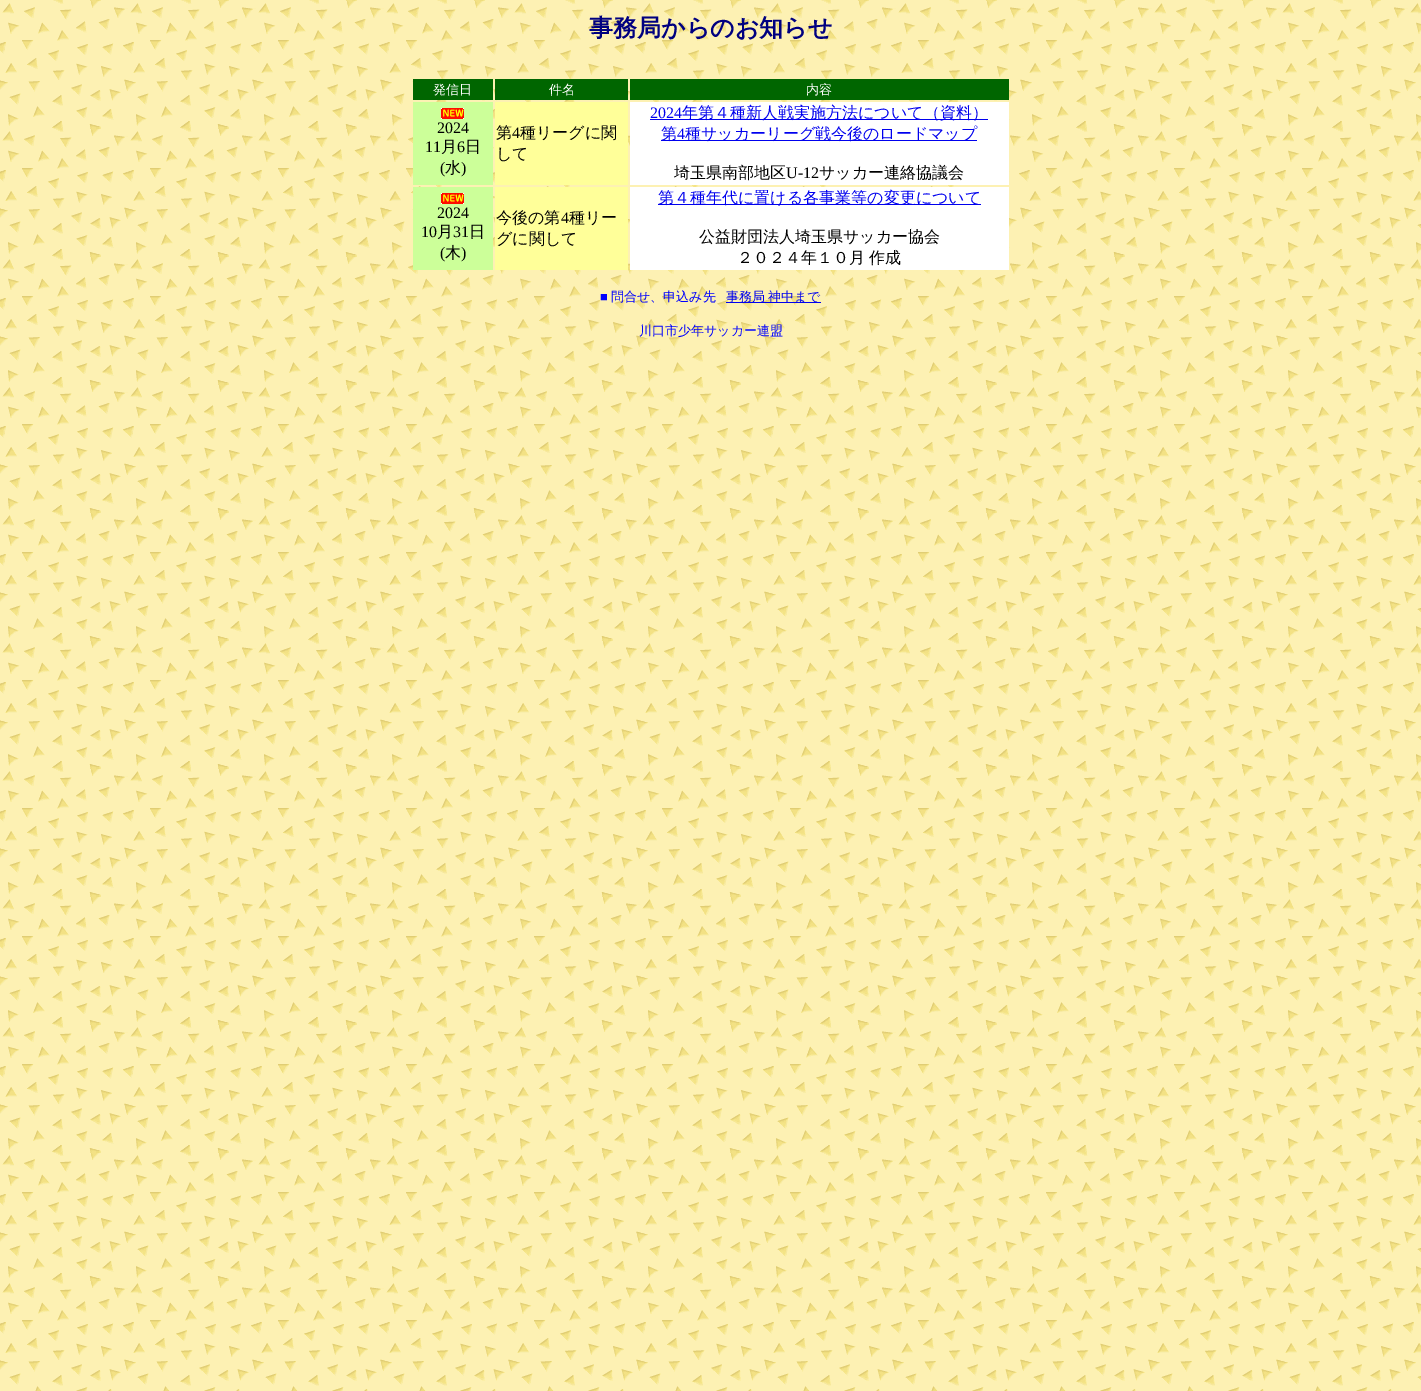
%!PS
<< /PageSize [1421 1391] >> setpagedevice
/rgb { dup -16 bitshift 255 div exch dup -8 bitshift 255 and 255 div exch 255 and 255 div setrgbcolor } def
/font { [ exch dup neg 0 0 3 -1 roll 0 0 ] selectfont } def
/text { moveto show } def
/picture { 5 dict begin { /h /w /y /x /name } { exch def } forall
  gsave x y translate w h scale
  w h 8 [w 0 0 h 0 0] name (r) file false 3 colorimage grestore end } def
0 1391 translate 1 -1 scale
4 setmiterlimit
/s1 { /WenQuanYiZenHei-Bold 24 font 16#000080 rgb } def
/s2 { /WenQuanYiZenHei-Medium 13 font 16#FFFFFF rgb } def
/s3 { /LiberationSerif-Regular 16 font 16#000000 rgb } def
/s4 { /WenQuanYiZenHei-Medium 16 font 16#000000 rgb } def
/s5 { /LiberationSerif-Regular 16 font 16#0000EE rgb } def
/s6 { /WenQuanYiZenHei-Medium 16 font 16#0000EE rgb } def
/s7 { /LiberationSerif-Regular 13 font 16#0000FF rgb } def
/s8 { /WenQuanYiZenHei-Medium 13 font 16#0000FF rgb } def
/s9 { /WenQuanYiZenHei-Medium 13 font 16#0000EE rgb } def
16#FFFFFF rgb
0 0 1421 1391 rectfill
(pic1.raw) 0 0 1421 1391 picture
s1
(事務局からのお知らせ) 589 36 text
16#006600 rgb
413 79 80 21 rectfill
s2
(発信日) 433 94 text
16#006600 rgb
495 79 133 21 rectfill
s2
(件名) 549 94 text
16#006600 rgb
630 79 379 21 rectfill
s2
(内容) 806 94 text
16#CCFF99 rgb
413 102 80 83 rectfill
(pic2.raw) 441 108 23 11 picture
s3
(2024) 437 133 text
(11) 425 152 text
s4
(月) 441 152 text
s3
(6) 457 152 text
s4
(日) 465 152 text
s3
(\() 440 173 text
s4
(水) 445 173 text
s3
(\)) 461 173 text
16#FFFF99 rgb
495 102 133 83 rectfill
s4
(第) 496 138 text
s3
(4) 512 138 text
s4
(種リーグに関) 520 138 text
(して) 496 159 text
16#FFFFFF rgb
630 102 379 83 rectfill
s5
(2024) 650 118 text
650 119 338 1 rectfill
s6
(年第４種新人戦実施方法について（資料）) 682 118 text
661 140 316 1 rectfill
(第) 661 139 text
s5
(4) 677 139 text
s6
(種サッカーリーグ戦今後のロードマップ) 685 139 text
s4
(埼玉県南部地区) 674 178 text
s3
(U-12) 786 178 text
s4
(サッカー連絡協議会) 819 178 text
16#CCFF99 rgb
413 187 80 83 rectfill
(pic2.raw) 441 193 23 11 picture
s3
(2024) 437 218 text
(10) 421 237 text
s4
(月) 437 237 text
s3
(31) 453 237 text
s4
(日) 469 237 text
s3
(\() 440 258 text
s4
(木) 445 258 text
s3
(\)) 461 258 text
16#FFFF99 rgb
495 187 133 83 rectfill
s4
(今後の第) 496 223 text
s3
(4) 561 223 text
s4
(種リー) 569 223 text
(グに関して) 496 244 text
16#FFFFFF rgb
630 187 379 83 rectfill
16#0000EE rgb
658 204 323 1 rectfill
(第４種年代に置ける各事業等の変更について) 658 203 text
s4
(公益財団法人埼玉県サッカー協会) 699 242 text
737 263 moveto -1 0 32 (２０２４年１０月 作成) widthshow
s7
(■) 600 301 text
s8
(問合せ、申込み先) 611 301 text
16#0000EE rgb
726 302 95 1 rectfill
(事務局) 726 301 text
(神中まで) 768 301 text
s8
(川口市少年サッカー連盟) 639 335 text
showpage
